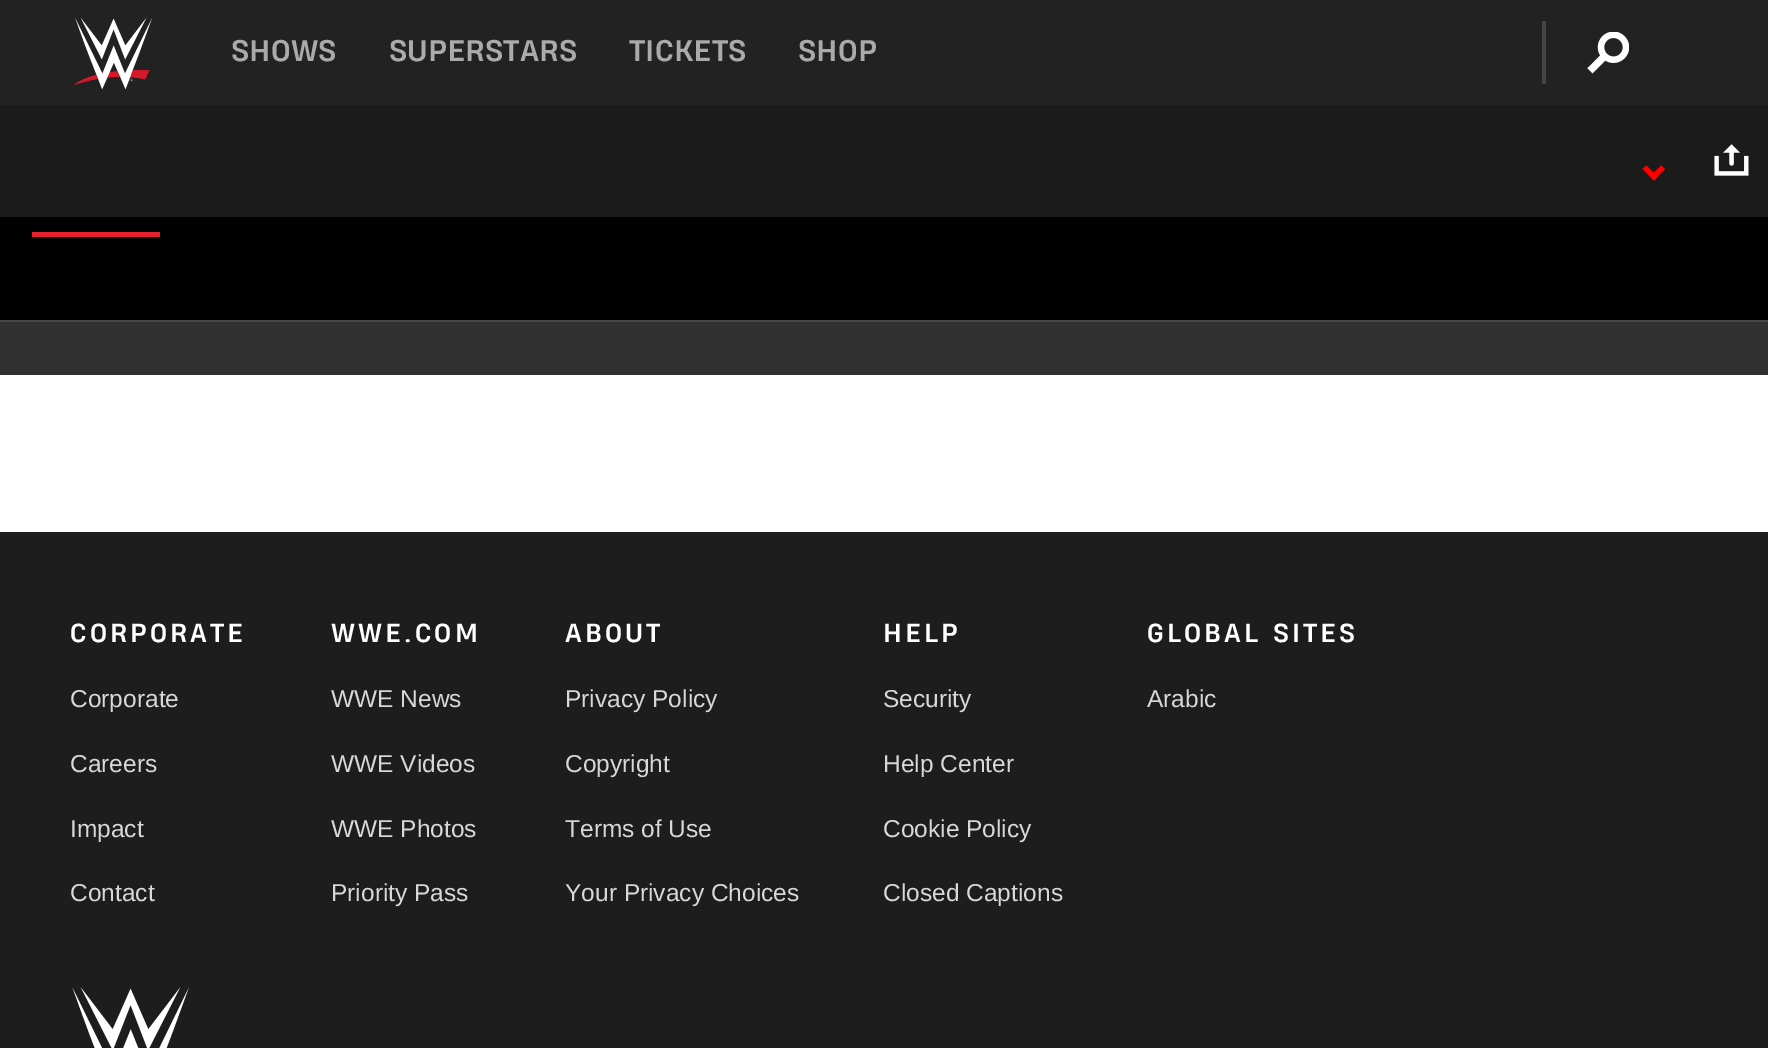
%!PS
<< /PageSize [1768 1048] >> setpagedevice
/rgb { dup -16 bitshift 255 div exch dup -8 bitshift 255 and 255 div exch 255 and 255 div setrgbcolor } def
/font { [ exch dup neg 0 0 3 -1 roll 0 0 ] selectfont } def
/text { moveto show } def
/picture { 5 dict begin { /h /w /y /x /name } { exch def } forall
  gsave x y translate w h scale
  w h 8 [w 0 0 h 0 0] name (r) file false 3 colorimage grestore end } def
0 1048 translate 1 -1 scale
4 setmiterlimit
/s1 { /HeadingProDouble-Bold 28 font 16#AAAAAA rgb } def
/s2 { /LiberationSans-Regular 24.5 font 16#D8D8D8 rgb } def
16#FFFFFF rgb
0 0 1768 1048 rectfill
16#222222 rgb
0 0 1768 105 rectfill
(pic1.raw) 74 17 78 73 picture
s1
(SHOWS) 231 61 text
(SUPERSTARS) 389 61 text
(TICKETS) 629 61 text
(SHOP) 798 61 text
16#444444 rgb
1542 21 4 63 rectfill
(pic2.raw) 1587 32 42 42 picture
16#303030 rgb
0 322 1768 53 rectfill
16#1B1B1B rgb
0 105 1768 112 rectfill
16#FF0000 rgb
1661 165.5 moveto 1665 169 lineto 1654 180.5 lineto 1650 176.5 lineto closepath fill
1646.5 165.5 moveto 1657.5 176.5 lineto 1654 180.5 lineto 1642.5 169 lineto closepath fill
(pic3.raw) 1714 144 35 32 picture
16#000000 rgb
0 217 1768 103 rectfill
16#474747 rgb
0 320 1768 2 rectfill
16#E7202F rgb
32 232 128 5 rectfill
16#1D1D1D rgb
0 532 1768 516 rectfill
/HeadingProDouble-Bold 24.5 font
16#FFFFFF rgb
70 642 moveto 3 0 (CORPORATE) ashow
s2
(Corporate) 70 707 text
(Careers) 70 772 text
(Impact) 70 837 text
(Contact) 70 901 text
/HeadingProDouble-Bold 24.5 font
16#FFFFFF rgb
331 642 moveto 3 0 (WWE.COM) ashow
s2
(WWE News) 331 707 text
(WWE Videos) 331 772 text
(WWE Photos) 331 837 text
(Priority Pass) 331 901 text
/HeadingProDouble-Bold 24.5 font
16#FFFFFF rgb
565 642 moveto 3 0 (ABOUT) ashow
s2
(Privacy Policy) 565 707 text
(Copyright) 565 772 text
(Terms of Use) 565 837 text
(Your Privacy Choices) 565 901 text
/HeadingProDouble-Bold 24.5 font
16#FFFFFF rgb
883 642 moveto 3 0 (HELP) ashow
s2
(Security) 883 707 text
(Help Center) 883 772 text
(Cookie Policy) 883 837 text
(Closed Captions) 883 901 text
/HeadingProDouble-Bold 24.5 font
16#FFFFFF rgb
1147 642 moveto 3 0 (GLOBAL SITES) ashow
s2
(Arabic) 1147 707 text
(pic4.raw) 72 987 117 61 picture
showpage
